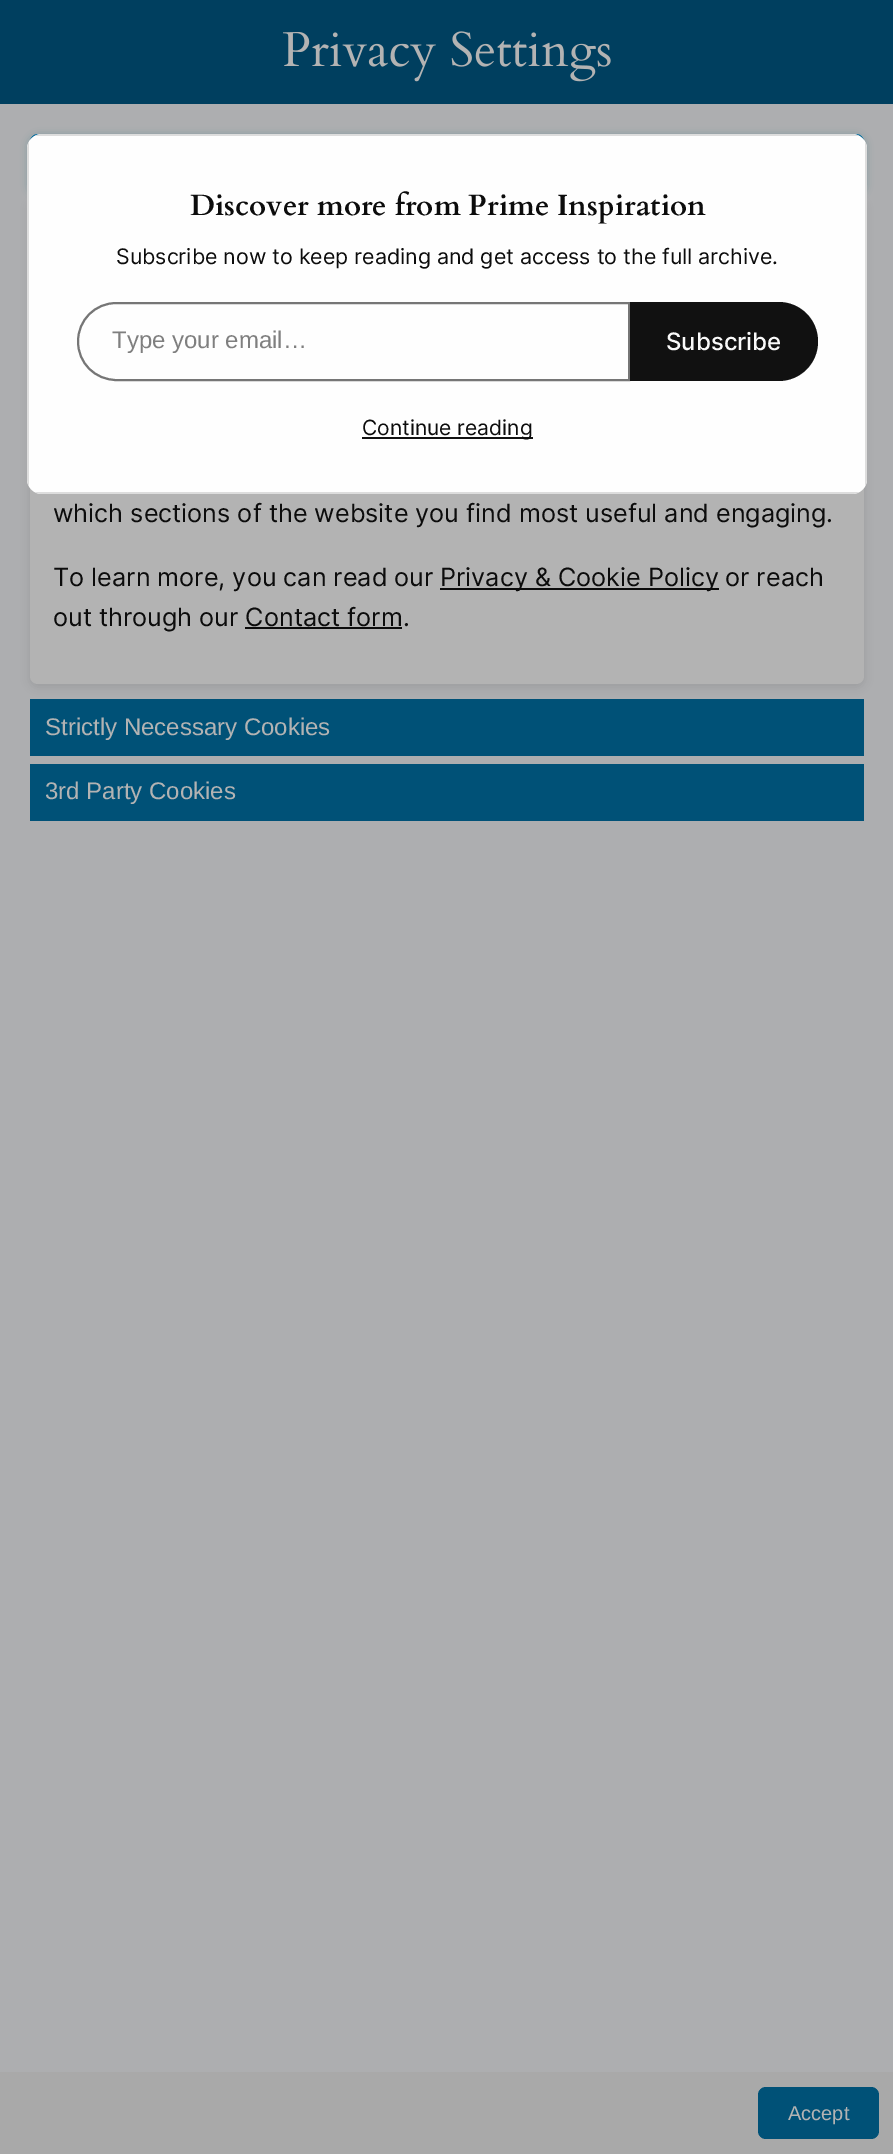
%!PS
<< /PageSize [893 2154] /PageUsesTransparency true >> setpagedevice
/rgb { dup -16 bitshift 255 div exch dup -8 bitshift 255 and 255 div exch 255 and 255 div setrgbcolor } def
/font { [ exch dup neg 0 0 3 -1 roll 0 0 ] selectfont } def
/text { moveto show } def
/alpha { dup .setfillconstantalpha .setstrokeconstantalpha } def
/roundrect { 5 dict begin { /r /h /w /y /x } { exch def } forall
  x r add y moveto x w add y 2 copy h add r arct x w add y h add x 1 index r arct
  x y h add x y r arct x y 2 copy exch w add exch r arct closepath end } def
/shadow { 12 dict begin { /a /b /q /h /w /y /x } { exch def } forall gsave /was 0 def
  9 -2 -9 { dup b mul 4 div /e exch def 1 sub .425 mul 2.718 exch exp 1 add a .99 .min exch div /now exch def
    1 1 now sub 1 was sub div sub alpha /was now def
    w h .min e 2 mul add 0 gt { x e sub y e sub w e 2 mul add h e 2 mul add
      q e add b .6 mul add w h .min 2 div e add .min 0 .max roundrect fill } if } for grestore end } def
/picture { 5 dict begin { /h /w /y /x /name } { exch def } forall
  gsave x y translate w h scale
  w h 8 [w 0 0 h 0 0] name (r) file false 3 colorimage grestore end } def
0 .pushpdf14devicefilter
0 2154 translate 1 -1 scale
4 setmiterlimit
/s1 { /Cardo-Bold 29.25 font 16#0C0C0C rgb } def
/s2 { /Inter-Regular 21.4 font 16#0C0C0C rgb } def
/s3 { /LiberationSans-Regular 24 font 16#7F7F7F rgb } def
/s4 { /Inter-Medium 24 font 16#F9F9F9 rgb } def
/s5 { /Inter-Regular 21 font 16#0C0C0C rgb } def
/s6 { /Inter-Regular 25.2 font 16#0C0C0C rgb } def
/s7 { /LiberationSans-Regular 24 font 16#B3B3B3 rgb } def
/s8 { /LiberationSans-Regular 20 font 16#B3B3B3 rgb } def
16#003F5F rgb
0 0 893 2154 rectfill
16#ADAEB0 rgb
0 104 893 1968 rectfill
16#000000 rgb
30 201 834 486 8 4.5 0.1 shadow
16#B3B3B3 rgb
30 198 834 486 8 roundrect fill
16#005177 rgb
30 137 834 57 8 4.5 0.4 shadow
16#00699B rgb
30 134 834 57 8 roundrect fill
16#FEFEFE rgb
27 134 840 360 15 roundrect fill
16#DDDDDD rgb
27 149 moveto 27 479 lineto 27 482 28 484 29 486 curveto 29 142 lineto 28 144 27 146 27 149 curveto closepath 42 134 moveto 39 134 37 135 35 136 curveto 859 136 lineto 857 135 855 134 852 134 curveto closepath 867 149 moveto 867 146 866 144 865 142 curveto 865 486 lineto 866 484 867 482 867 479 curveto closepath 852 494 moveto 855 494 857 493 859 492 curveto 35 492 lineto 37 493 39 494 42 494 curveto closepath eofill
s1
(Discover more from Prime Inspiration) 190 215 text
s2
(Subscribe now to keep reading and get access to the full archive.) 116 264 text
16#767676 rgb
2 setlinewidth
116.5 303 moveto 629 303 lineto 629 380 lineto 116.5 380 lineto 95 380 78 363 78 341.5 curveto 78 320 95 303 116.5 303 curveto closepath stroke
s3
(Type your email…) 112 348 text
16#111111 rgb
630 302 moveto 778.5 302 lineto 800.5 302 818 319.5 818 341.5 curveto 818 363.5 800.5 381 778.5 381 curveto 630 381 lineto closepath fill
s4
(Subscribe) 666 350 text
16#111111 rgb
362 437 171 2 rectfill
s5
(Continue reading) 362 435 text
(pic1.raw) 283 31 328 51 picture
s6
(which sections of the website you find most useful and engaging.) 53 522 text
(To learn more, you can read our) 53 586 text
440 588 279 2 rectfill
(Privacy & Cookie Policy) 440 586 text
(or reach) 725 586 text
(out through our Contact form.) 53 626 text
245 627 157 2 rectfill
16#005177 rgb
30 699 834 57 rectfill
s7
(Strictly Necessary Cookies) 45 735 text
16#005177 rgb
30 764 834 57 rectfill
s7
(3rd Party Cookies) 45 799 text
16#A9A9A9 rgb
0 2072 893 82 rectfill
16#005177 rgb
758 2087 121 52 8 roundrect fill
s8
(Accept) 788 2120 text
.poppdf14devicefilter showpage
